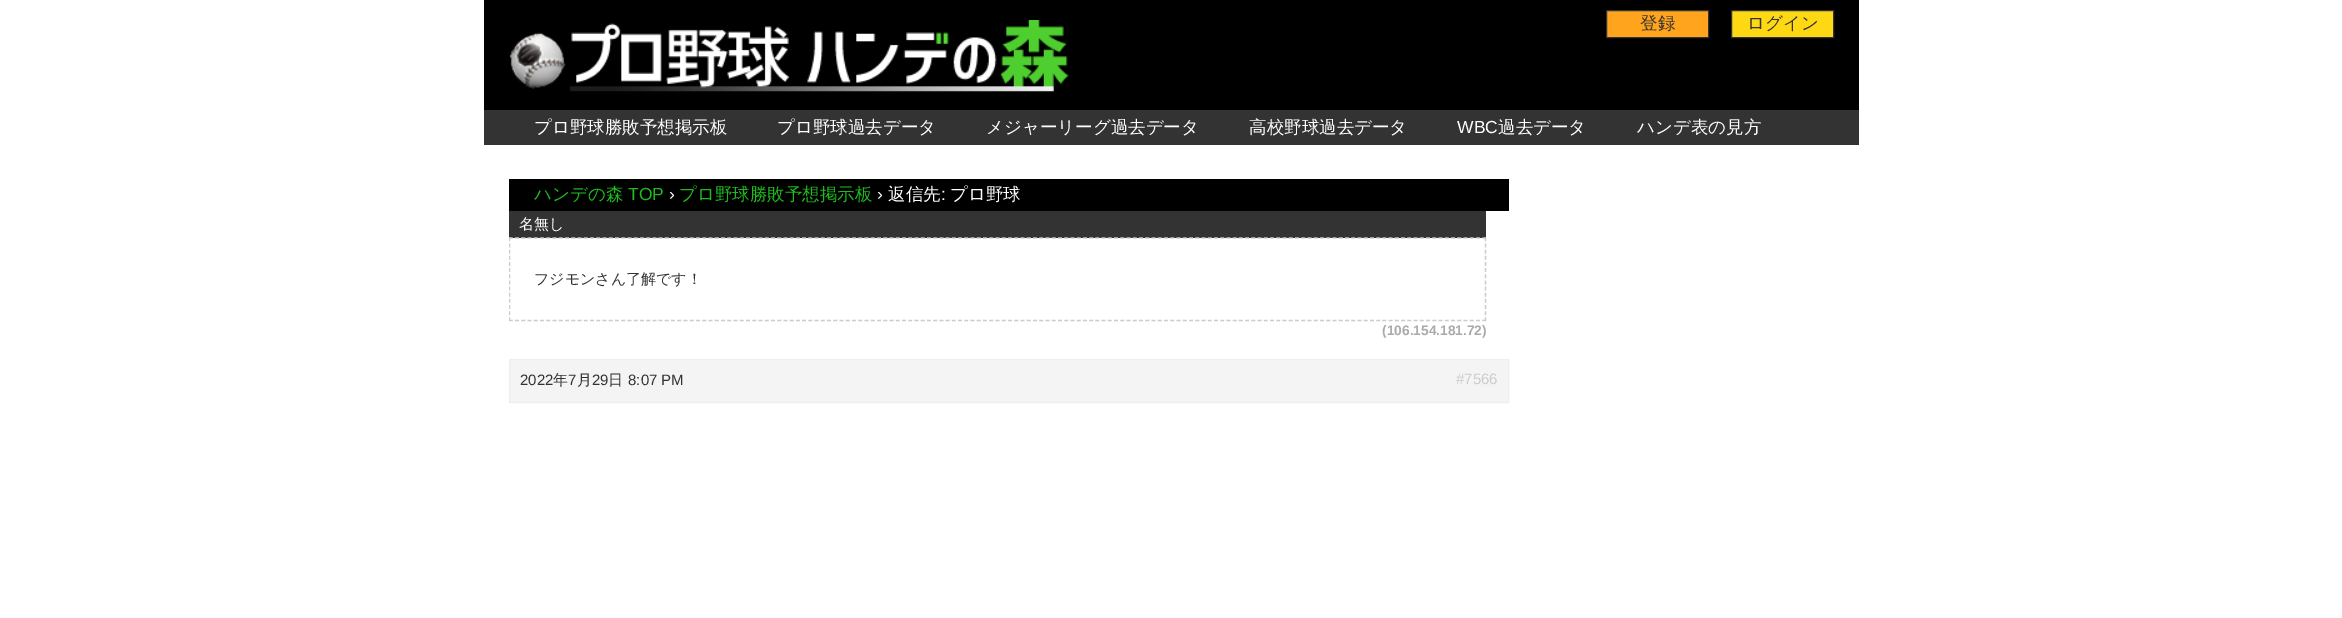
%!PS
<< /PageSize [2342 618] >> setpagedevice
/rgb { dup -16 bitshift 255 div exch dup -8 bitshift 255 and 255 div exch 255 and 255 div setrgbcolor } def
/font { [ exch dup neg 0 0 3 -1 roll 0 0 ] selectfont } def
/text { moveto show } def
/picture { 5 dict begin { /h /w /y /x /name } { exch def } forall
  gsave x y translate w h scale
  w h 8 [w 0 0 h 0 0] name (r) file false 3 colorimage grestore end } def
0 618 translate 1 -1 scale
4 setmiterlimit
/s1 { /WenQuanYiZenHei-Medium 17.5 font 16#333333 rgb } def
/s2 { /WenQuanYiZenHei-Medium 17.5 font 16#FFFFFF rgb } def
/s3 { /LiberationSans-Regular 17.5 font 16#FFFFFF rgb } def
/s4 { /WenQuanYiZenHei-Medium 17.5 font 16#1FBB1E rgb } def
/s5 { /LiberationSans-Regular 17.5 font 16#1FBB1E rgb } def
/s6 { /WenQuanYiZenHei-Medium 15 font 16#FFFFFF rgb } def
/s7 { /WenQuanYiZenHei-Medium 15 font 16#333333 rgb } def
/s8 { /LiberationSans-Bold 13.75 font 16#AAAAAA rgb } def
/s9 { /LiberationSans-Regular 15 font 16#333333 rgb } def
/s10 { /LiberationSans-Regular 15 font 16#CCCCCC rgb } def
16#FFFFFF rgb
0 0 2342 618 rectfill
16#000000 rgb
484 0 1375 110 rectfill
(pic1.raw) 509 20 560 72 picture
16#FFA41C rgb
1606.5 10.5 moveto 1708.5 10.5 lineto 1708.5 37.5 lineto 1606.5 37.5 lineto closepath gsave fill grestore
16#333333 rgb
stroke
s1
(登録) 1640 29 text
16#FFD814 rgb
1731.5 10.5 moveto 1833.5 10.5 lineto 1833.5 37.5 lineto 1731.5 37.5 lineto closepath gsave fill grestore
16#333333 rgb
stroke
(ログイン) 1747 29 text
484 110 1375 35 rectfill
s2
(プロ野球勝敗予想掲示板) 534 133 text
(プロ野球過去データ) 777 133 text
(メジャーリーグ過去データ) 986 133 text
(高校野球過去データ) 1249 133 text
s3
(WBC) 1457 133 text
s2
(過去データ) 1498 133 text
(ハンデ表の見方) 1637 133 text
16#000000 rgb
509 179 1000 32 rectfill
s4
(ハンデの森) 534 200 text
s5
(TOP) 628 200 text
s3
(›) 669 200 text
s4
(プロ野球勝敗予想掲示板) 679 200 text
s3
(›) 877 200 text
s2
(返信先) 888 200 text
s3
(:) 941 200 text
s2
(プロ野球) 950 200 text
16#333333 rgb
509 211 977 27 rectfill
s6
(名無し) 519 229 text
16#CCCCCC rgb
1.2 setlinewidth
[3.75 2.49] 0 setdash
509 238 moveto 1486 238 lineto stroke
[3.75 2.4] 0 setdash
1485.5 237.5 moveto 1485.5 321 lineto stroke
[3.75 2.49] 0 setdash
509 320.5 moveto 1486 320.5 lineto stroke
gsave
509 179 1000 224 rectclip
[3.75 2.4] 0 setdash
509.5 237.5 moveto 509.5 321 lineto stroke
grestore
s7
(フジモンさん了解です！) 534 284 text
s8
(\(106.154.181.72\)) 1382 335 text
16#F4F4F4 rgb
509.5 359.5 moveto 1508.5 359.5 lineto 1508.5 402.5 lineto 509.5 402.5 lineto closepath gsave fill grestore
16#EEEEEE rgb
1 setlinewidth
[] 0 setdash
stroke
s9
(2022) 520 385 text
s7
(年) 553 385 text
s9
(7) 568 385 text
s7
(月) 577 385 text
s9
(29) 592 385 text
s7
(日) 608 385 text
s9
(8:07 PM) 628 385 text
s10
(#7566) 1456 384 text
showpage
